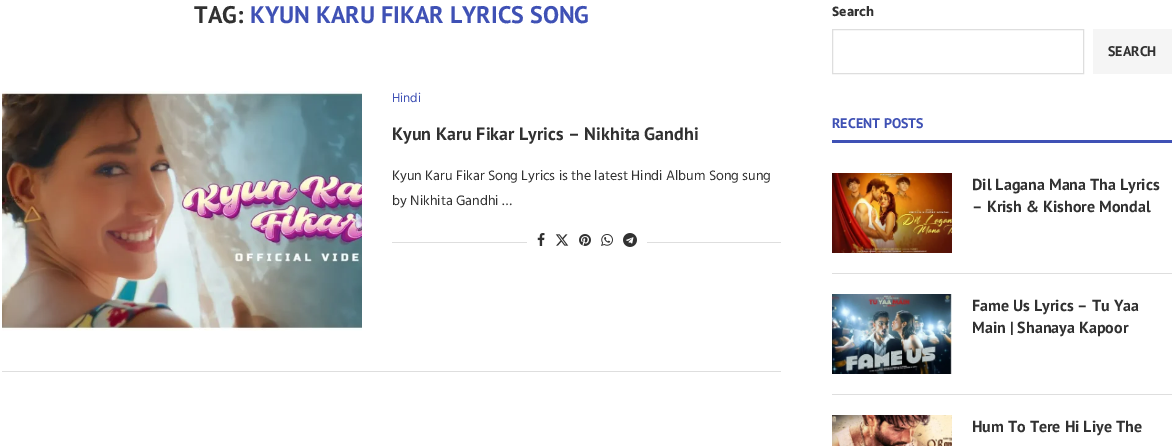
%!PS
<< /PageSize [1173 446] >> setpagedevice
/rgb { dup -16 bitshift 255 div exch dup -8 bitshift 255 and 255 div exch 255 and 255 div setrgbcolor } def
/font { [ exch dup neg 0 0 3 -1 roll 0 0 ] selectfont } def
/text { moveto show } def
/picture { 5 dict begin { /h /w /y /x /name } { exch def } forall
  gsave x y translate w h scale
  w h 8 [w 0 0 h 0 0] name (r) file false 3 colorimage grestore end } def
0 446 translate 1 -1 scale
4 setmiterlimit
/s1 { /PTSans-Bold 24 font 16#313131 rgb } def
/s2 { /PTSans-Bold 24 font 16#3F51B5 rgb } def
/s3 { /Hind-Regular 13 font 16#3F51B5 rgb } def
/s4 { /PTSans-Bold 18 font 16#313131 rgb } def
/s5 { /Hind-Regular 14 font 16#313131 rgb } def
/s6 { /Hind-Bold 14 font 16#313131 rgb } def
/s7 { /PTSans-Bold 14 font 16#313131 rgb } def
/s8 { /PTSans-Bold 14 font 16#3F51B5 rgb } def
/s9 { /PTSans-Bold 16 font 16#313131 rgb } def
16#FFFFFF rgb
0 0 1173 446 rectfill
s1
(TAG:) 194 23 text
s2
(KYUN KARU FIKAR LYRICS SONG) 250 23 text
16#DEDEDE rgb
2 371 779 1 rectfill
(pic1.raw) 2 91 360 240 picture
s3
(Hindi) 392 102 text
s4
(Kyun Karu Fikar Lyrics – Nikhita Gandhi) 392 140 text
s5
(Kyun Karu Fikar Song Lyrics is the latest Hindi Album Song sung) 392 180 text
(by Nikhita Gandhi …) 392 205 text
16#DEDEDE rgb
392 242 389 1 rectfill
16#FFFFFF rgb
527 242 120 1 rectfill
(pic2.raw) 537 233 8 13 picture
(pic3.raw) 555 234 14 12 picture
(pic4.raw) 579 234 12 12 picture
(pic5.raw) 601 234 12 12 picture
(pic6.raw) 623 233 14 14 picture
s6
(Search) 832 16 text
16#DEDEDE rgb
832.5 29.5 251 44 rectstroke
16#F5F5F5 rgb
1093 29 79 45 rectfill
s7
(SEARCH) 1108 56 text
16#3F51B5 rgb
832 140 340 3 rectfill
(RECENT POSTS) 832 128 text
16#DEDEDE rgb
832 273 340 1 rectfill
(pic7.raw) 832 173 120 80 picture
s9
(Dil Lagana Mana Tha Lyrics) 972 190 text
(– Krish & Kishore Mondal) 972 212 text
16#DEDEDE rgb
832 394 340 1 rectfill
(pic8.raw) 832 294 120 80 picture
s9
(Fame Us Lyrics – Tu Yaa) 972 311 text
(Main | Shanaya Kapoor) 972 333 text
(pic9.raw) 832 415 120 31 picture
(Hum To Tere Hi Liye The) 972 432 text
showpage
